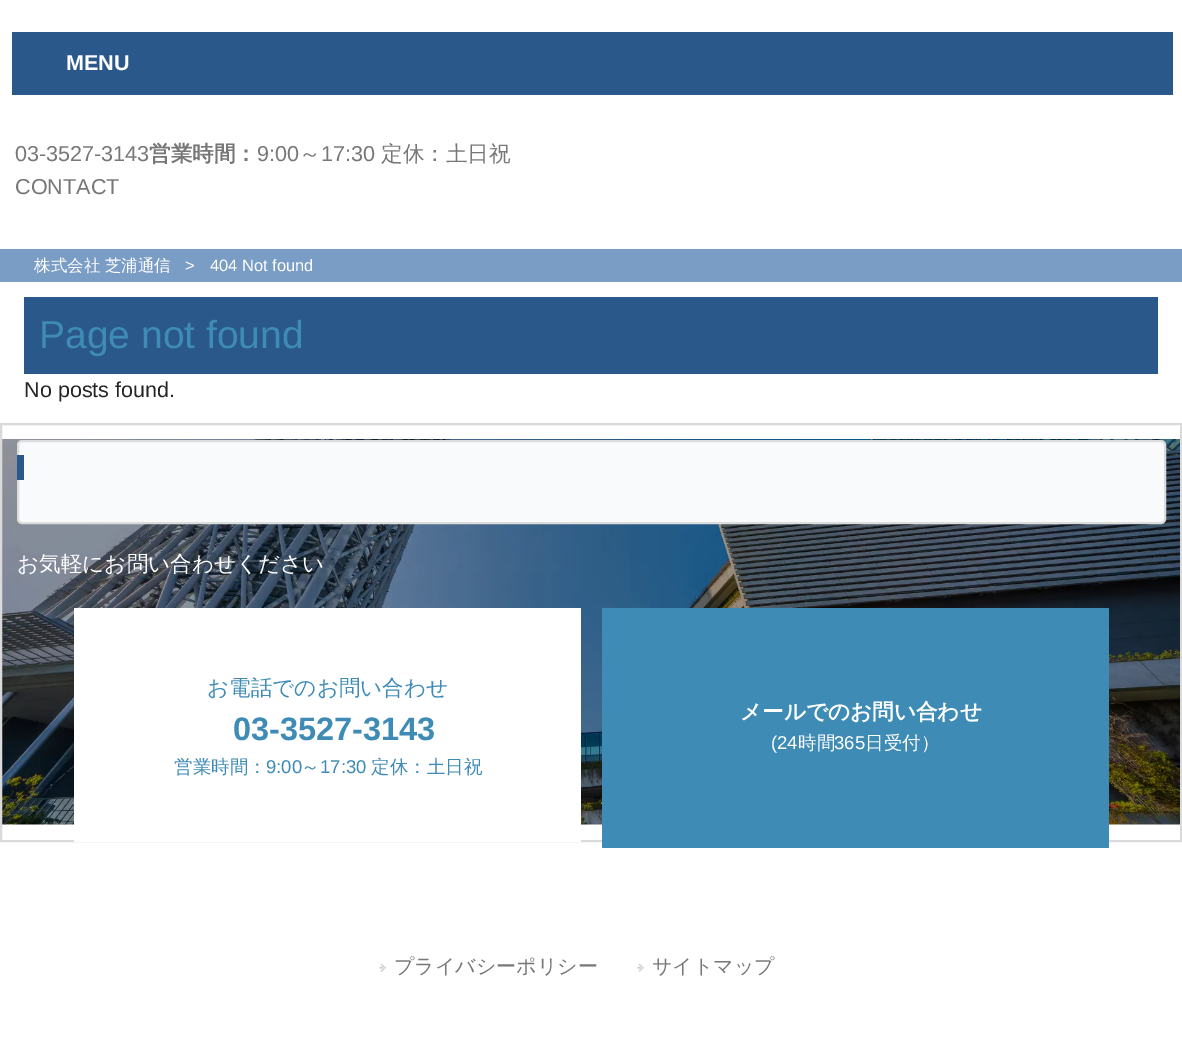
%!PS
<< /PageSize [1182 1047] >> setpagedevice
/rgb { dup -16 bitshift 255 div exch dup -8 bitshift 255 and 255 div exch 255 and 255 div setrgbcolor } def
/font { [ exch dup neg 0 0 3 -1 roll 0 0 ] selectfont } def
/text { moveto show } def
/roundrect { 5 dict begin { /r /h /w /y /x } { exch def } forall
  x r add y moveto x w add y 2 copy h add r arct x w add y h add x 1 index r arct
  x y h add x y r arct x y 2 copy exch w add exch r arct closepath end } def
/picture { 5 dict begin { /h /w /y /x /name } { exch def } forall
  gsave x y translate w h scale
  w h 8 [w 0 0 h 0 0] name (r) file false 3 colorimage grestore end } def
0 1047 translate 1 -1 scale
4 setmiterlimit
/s1 { /LiberationSans-Bold 21.6 font 16#FFFFFF rgb } def
/s2 { /LiberationSans-Regular 21.6 font 16#777777 rgb } def
/s3 { /WenQuanYiZenHei-Bold 21.6 font 16#777777 rgb } def
/s4 { /WenQuanYiZenHei-Medium 21.6 font 16#777777 rgb } def
/s5 { /WenQuanYiZenHei-Medium 16.5 font 16#FFFFFF rgb } def
/s6 { /LiberationSans-Regular 16.5 font 16#FFFFFF rgb } def
/s7 { /LiberationSans-Regular 39 font 16#3E8BB6 rgb } def
/s8 { /LiberationSans-Regular 21.6 font 16#252525 rgb } def
/s9 { /WenQuanYiZenHei-Medium 21.6 font 16#FFFFFF rgb } def
/s10 { /WenQuanYiZenHei-Medium 21.6 font 16#3E8BB6 rgb } def
/s11 { /LiberationSans-Bold 32.5 font 16#3E8BB6 rgb } def
/s12 { /WenQuanYiZenHei-Medium 18.5 font 16#3E8BB6 rgb } def
/s13 { /LiberationSans-Regular 18.5 font 16#3E8BB6 rgb } def
/s14 { /WenQuanYiZenHei-Bold 21.6 font 16#FFFFFF rgb } def
/s15 { /LiberationSans-Regular 18.5 font 16#FFFFFF rgb } def
/s16 { /WenQuanYiZenHei-Medium 18.5 font 16#FFFFFF rgb } def
/s17 { /WenQuanYiZenHei-Medium 20 font 16#777777 rgb } def
16#FFFFFF rgb
0 0 1182 1047 rectfill
16#2A588B rgb
12 32 1161 63 rectfill
s1
(MENU) 66 70 text
s2
(03-3527-3143) 15 161 text
s3
(営業時間：) 149 161 text
s2
(9:00) 257 161 text
s4
(～) 299 161 text
s2
(17:30) 321 161 text
s4
(定休：土日祝) 381 161 text
s2
(CONTACT) 15 194 text
16#799DC5 rgb
0 249 1182 33 rectfill
s5
(株式会社 芝浦通信) 34 271 text
s6
(>) 185 271 text
(404 Not found) 210 271 text
16#2A588B rgb
24 297 1134 77 rectfill
s7
(Page not found) 39 348 text
s8
(No posts found.) 24 397 text
(pic1.raw) 2 439 1178 386 picture
16#DADADA rgb
2 setlinewidth
1 424 1180 417 rectstroke
16#F9FAFB rgb
18 441 1147 82 4 roundrect gsave fill grestore
16#DBDCDC rgb
stroke
16#2A588B rgb
17 455 7 25 rectfill
s9
(お気軽にお問い合わせください) 17 571 text
16#DDDDDD rgb
1.5 setlinewidth
[1.5 1.5] 0 setdash
73.5 803 moveto 580.5 803 lineto stroke
16#FFFFFF rgb
74 608 507 234 rectfill
s10
(お電話でのお問い合わせ) 207 695 text
s11
(03-3527-3143) 233 740 text
s12
(営業時間：) 174 773 text
s13
(9:00) 266 773 text
s12
(～) 301 773 text
s13
(17:30) 320 773 text
s12
(定休：土日祝) 371 773 text
16#DDDDDD rgb
601.5 803 moveto 1108.5 803 lineto stroke
16#3E8BB6 rgb
602 608 507 240 rectfill
s14
(メールでのお問い合わせ) 740 719 text
s15
(\(24) 771 749 text
s16
(時間) 798 749 text
s15
(365) 834 749 text
s16
(日受付）) 865 749 text
(pic2.raw) 379 963 7 9 picture
s17
(プライバシーポリシー) 394 973 text
(pic2.raw) 637 963 7 9 picture
(サイトマップ) 652 973 text
showpage
